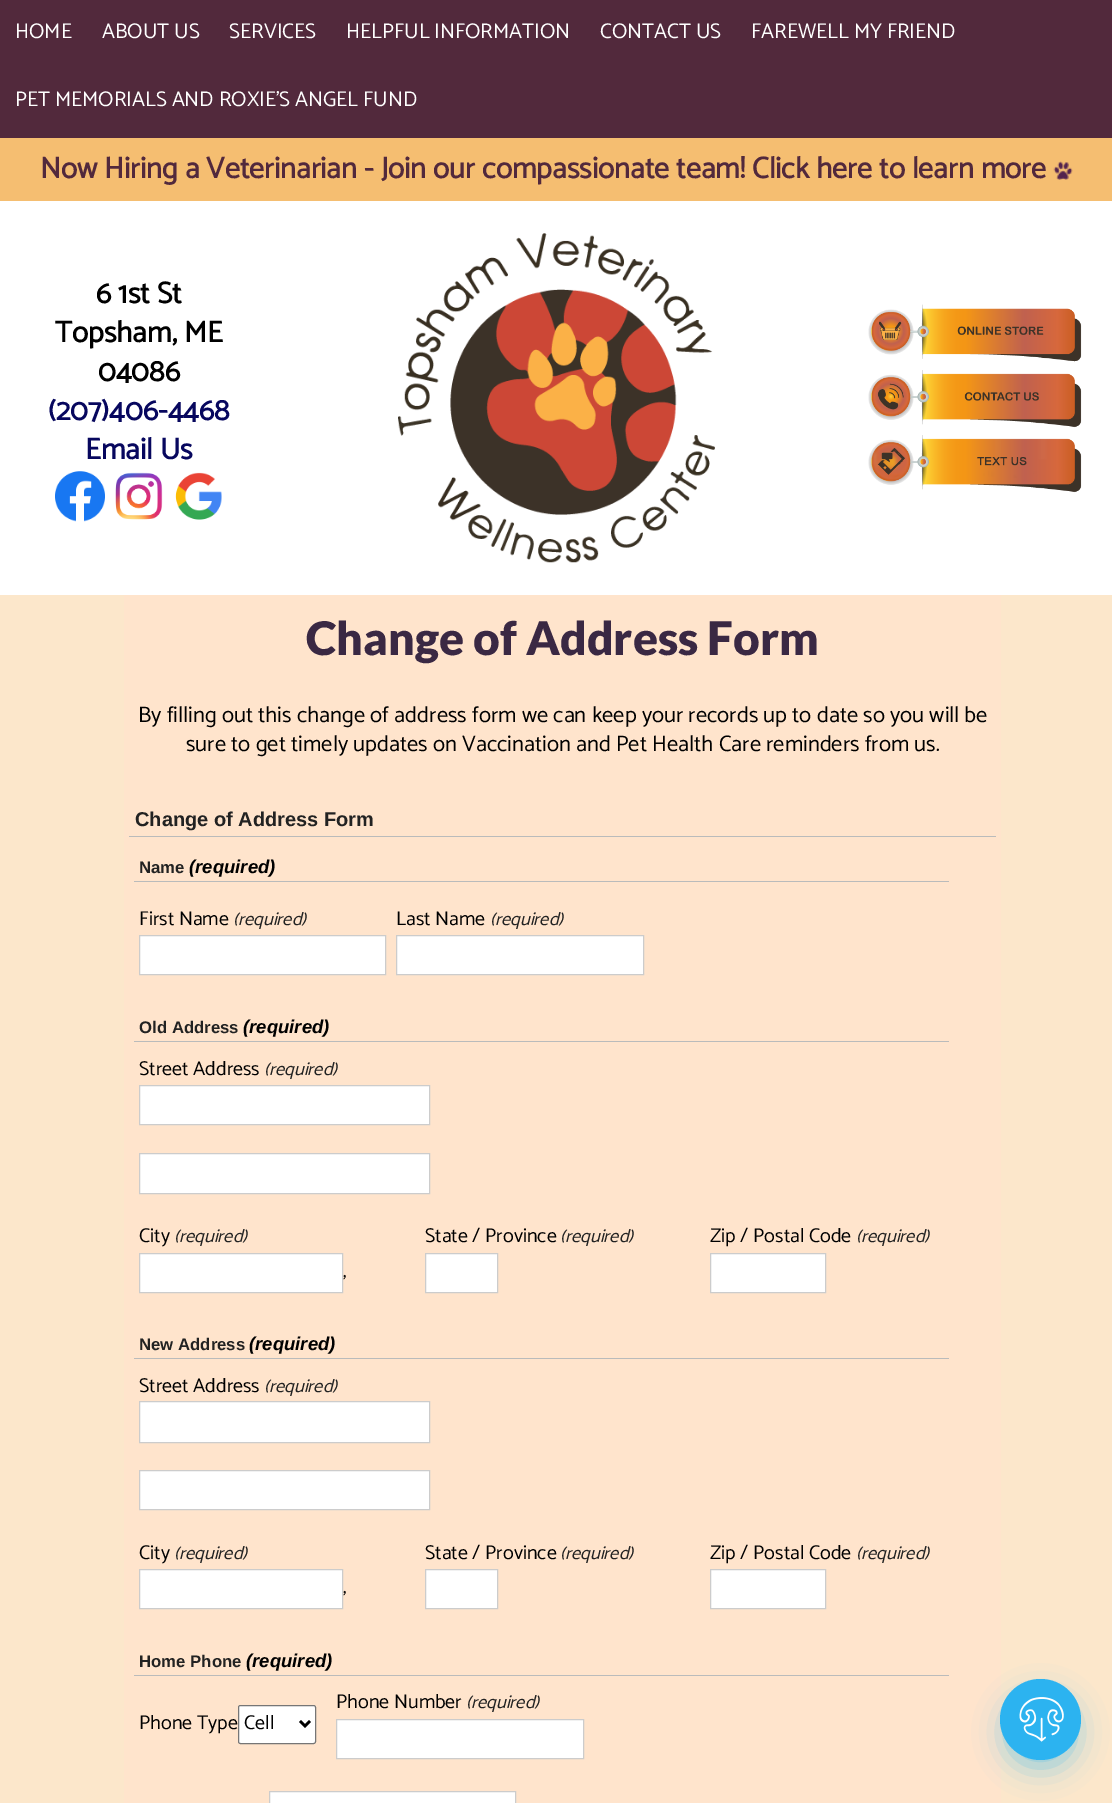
%!PS
<< /PageSize [1112 1803] /PageUsesTransparency true >> setpagedevice
/rgb { dup -16 bitshift 255 div exch dup -8 bitshift 255 and 255 div exch 255 and 255 div setrgbcolor } def
/font { [ exch dup neg 0 0 3 -1 roll 0 0 ] selectfont } def
/text { moveto show } def
/alpha { dup .setfillconstantalpha .setstrokeconstantalpha } def
/circle { newpath 0 360 arc closepath } def
/roundrect { 5 dict begin { /r /h /w /y /x } { exch def } forall
  x r add y moveto x w add y 2 copy h add r arct x w add y h add x 1 index r arct
  x y h add x y r arct x y 2 copy exch w add exch r arct closepath end } def
/shadow { 12 dict begin { /a /b /q /h /w /y /x } { exch def } forall gsave /was 0 def
  9 -2 -9 { dup b mul 4 div /e exch def 1 sub .425 mul 2.718 exch exp 1 add a .99 .min exch div /now exch def
    1 1 now sub 1 was sub div sub alpha /was now def
    w h .min e 2 mul add 0 gt { x e sub y e sub w e 2 mul add h e 2 mul add
      q e add b .6 mul add w h .min 2 div e add .min 0 .max roundrect fill } if } for grestore end } def
/picture { 5 dict begin { /h /w /y /x /name } { exch def } forall
  gsave x y translate w h scale
  w h 8 [w 0 0 h 0 0] name (r) file false 3 colorimage grestore end } def
0 .pushpdf14devicefilter
0 1803 translate 1 -1 scale
4 setmiterlimit
/s1 { /Catamaran-Thin 21.25 font 16#FFFFFF rgb } def
/s2 { /Catamaran-Bold 30 font 16#52293C rgb } def
/s3 { /Catamaran-Bold 30 font 16#000000 rgb } def
/s4 { /Catamaran-Bold 30 font 16#07075E rgb } def
/s5 { /Lato-Black 46.25 font 16#3A2843 rgb } def
/s6 { /Catamaran-Thin 22.5 font 16#000000 rgb } def
/s7 { /LiberationSans-Bold 20 font 16#222222 rgb } def
/s8 { /LiberationSans-Bold 16.75 font 16#222222 rgb } def
/s9 { /LiberationSans-BoldItalic 18.5 font 16#000000 rgb } def
/s10 { /Catamaran-Thin 20 font 16#000000 rgb } def
/s11 { /Catamaran-ThinItalic 18.5 font 16#222222 rgb } def
16#FCE7CB rgb
0 0 1112 1803 rectfill
16#52293C rgb
0 0 1112 138 rectfill
s1
(HOME) 15 38 text
(ABOUT US) 102 38 text
(SERVICES) 229 38 text
(HELPFUL INFORMATION) 346 38 text
(CONTACT US) 600 38 text
(FAREWELL MY FRIEND) 751 38 text
(PET MEMORIALS AND ROXIE'S ANGEL FUND) 15 106 text
16#F5BE71 rgb
0 138 1112 63 rectfill
s2
(Now Hiring a Veterinarian - Join our compassionate team! Click here to learn more) 40 178 text
(pic1.raw) 1053 161 20 19 picture
16#FFFFFF rgb
0 201 1112 394 rectfill
s3
(6 1st St) 96 303 text
(Topsham, ME) 55 342 text
(04086) 98 381 text
s4
(\(207\)406-4468) 48 420 text
(Email Us) 85 459 text
(pic2.raw) 55 471 50 51 picture
(pic3.raw) 115 472 48 48 picture
(pic4.raw) 175 472 47 48 picture
(pic5.raw) 398 233 317 330 picture
(pic6.raw) 868 304 214 58 picture
(pic7.raw) 868 370 214 58 picture
(pic8.raw) 868 435 214 58 picture
16#FFE4CC rgb
124 595 877 1208 rectfill
s5
(Change of Address Form) 306 655 text
s6
(By filling out this change of address form we can keep your records up to date so you will be) 138 722 text
(sure to get timely updates on Vaccination and Pet Health Care reminders from us.) 186 751 text
16#BABBBB rgb
129 836 867 1 rectfill
s7
(Change of Address Form) 135 826 text
16#BABBBB rgb
134 881 815 1 rectfill
s8
(Name) 139 873 text
s9
(\(required\)) 189 873 text
s10
(First Name) 139 925 text
s11
(\(required\)) 233 925 text
16#FFFFFF rgb
139.5 935.5 moveto 385.5 935.5 lineto 385.5 974.5 lineto 139.5 974.5 lineto closepath gsave fill grestore
16#CCCCCC rgb
stroke
s10
(Last Name) 396 925 text
s11
(\(required\)) 490 925 text
16#FFFFFF rgb
396.5 935.5 moveto 643.5 935.5 lineto 643.5 974.5 lineto 396.5 974.5 lineto closepath gsave fill grestore
16#CCCCCC rgb
stroke
16#BABBBB rgb
134 1041 815 1 rectfill
s8
(Old Address) 139 1033 text
s9
(\(required\)) 243 1033 text
s10
(Street Address) 139 1075 text
s11
(\(required\)) 264 1075 text
16#FFFFFF rgb
139.5 1085.5 moveto 429.5 1085.5 lineto 429.5 1124.5 lineto 139.5 1124.5 lineto closepath gsave fill grestore
16#CCCCCC rgb
stroke
16#FFFFFF rgb
139.5 1153.5 moveto 429.5 1153.5 lineto 429.5 1193.5 lineto 139.5 1193.5 lineto closepath gsave fill grestore
16#CCCCCC rgb
stroke
s10
(City) 139 1242 text
s11
(\(required\)) 174 1242 text
16#FFFFFF rgb
139.5 1253.5 moveto 342.5 1253.5 lineto 342.5 1292.5 lineto 139.5 1292.5 lineto closepath gsave fill grestore
16#CCCCCC rgb
stroke
s10
(,) 343 1277 text
(State / Province) 425 1242 text
s11
(\(required\)) 560 1242 text
16#FFFFFF rgb
425.5 1253.5 moveto 497.5 1253.5 lineto 497.5 1292.5 lineto 425.5 1292.5 lineto closepath gsave fill grestore
16#CCCCCC rgb
stroke
s10
(Zip / Postal Code) 710 1242 text
s11
(\(required\)) 856 1242 text
16#FFFFFF rgb
710.5 1253.5 moveto 825.5 1253.5 lineto 825.5 1292.5 lineto 710.5 1292.5 lineto closepath gsave fill grestore
16#CCCCCC rgb
stroke
16#BABBBB rgb
134 1358 815 1 rectfill
s8
(New Address) 139 1350 text
s9
(\(required\)) 249 1350 text
s10
(Street Address) 139 1392 text
s11
(\(required\)) 264 1392 text
16#FFFFFF rgb
139.5 1401.5 moveto 429.5 1401.5 lineto 429.5 1442.5 lineto 139.5 1442.5 lineto closepath gsave fill grestore
16#CCCCCC rgb
stroke
16#FFFFFF rgb
139.5 1470.5 moveto 429.5 1470.5 lineto 429.5 1509.5 lineto 139.5 1509.5 lineto closepath gsave fill grestore
16#CCCCCC rgb
stroke
s10
(City) 139 1559 text
s11
(\(required\)) 174 1559 text
16#FFFFFF rgb
139.5 1569.5 moveto 342.5 1569.5 lineto 342.5 1608.5 lineto 139.5 1608.5 lineto closepath gsave fill grestore
16#CCCCCC rgb
stroke
s10
(,) 343 1593 text
(State / Province) 425 1559 text
s11
(\(required\)) 560 1559 text
16#FFFFFF rgb
425.5 1569.5 moveto 497.5 1569.5 lineto 497.5 1608.5 lineto 425.5 1608.5 lineto closepath gsave fill grestore
16#CCCCCC rgb
stroke
s10
(Zip / Postal Code) 710 1559 text
s11
(\(required\)) 856 1559 text
16#FFFFFF rgb
710.5 1569.5 moveto 825.5 1569.5 lineto 825.5 1608.5 lineto 710.5 1608.5 lineto closepath gsave fill grestore
16#CCCCCC rgb
stroke
16#BABBBB rgb
134 1675 815 1 rectfill
s8
(Home Phone) 139 1667 text
s9
(\(required\)) 246 1667 text
s10
(Phone Number) 336 1708 text
s11
(\(required\)) 466 1708 text
16#FFFFFF rgb
336.5 1719.5 moveto 583.5 1719.5 lineto 583.5 1758.5 lineto 336.5 1758.5 lineto closepath gsave fill grestore
16#CCCCCC rgb
stroke
s10
(Phone Type) 139 1729 text
16#FFFFFF rgb
238.5 1705.5 77 38 2 roundrect gsave fill grestore
16#767676 rgb
stroke
16#000000 rgb
2.5 setlinewidth
300 1721 moveto 305 1726 lineto 310 1721 lineto stroke
(Cell) 244 1729 text
16#FFFFFF rgb
269.5 1791.5 moveto 515.5 1791.5 lineto 515.5 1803.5 lineto 269.5 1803.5 lineto closepath gsave fill grestore
16#CCCCCC rgb
1 setlinewidth
stroke
16#2CB3F0 rgb
1006 1698 69 68 34 15.5 0.6 shadow
1040.5 1719.5 40.5 circle fill
(pic9.raw) 1019 1697 45 45 picture
.poppdf14devicefilter showpage
